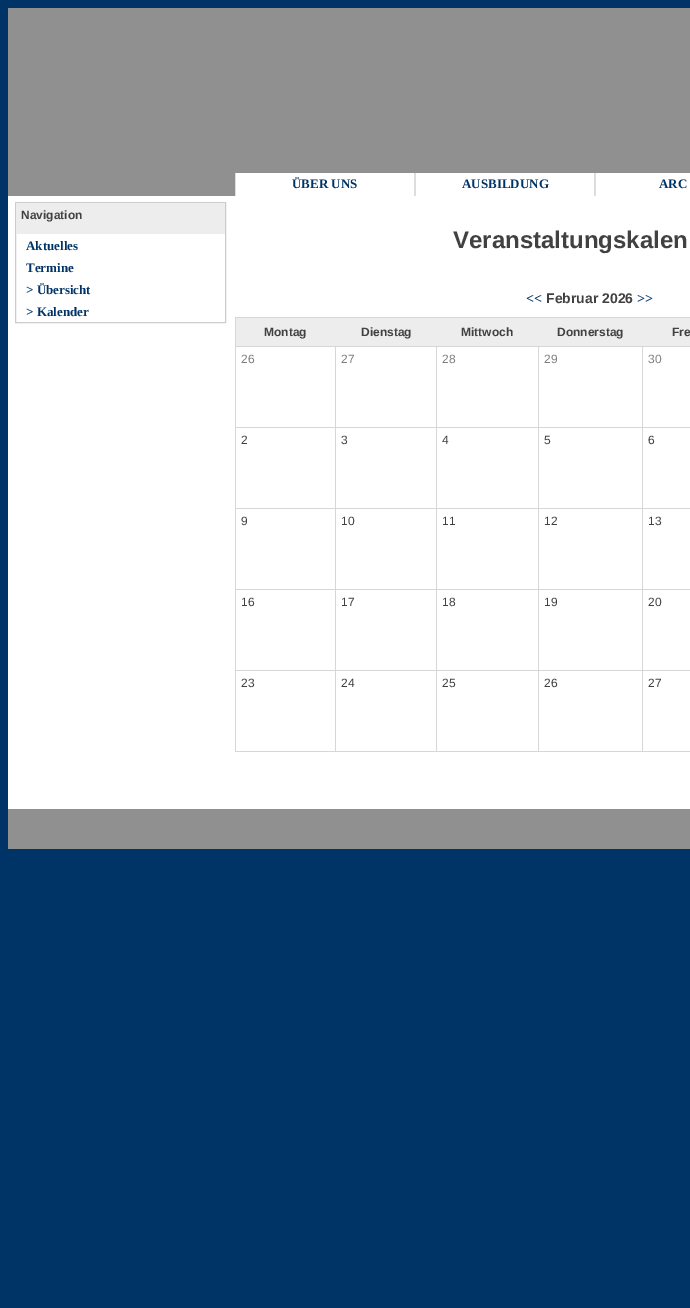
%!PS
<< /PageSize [690 1308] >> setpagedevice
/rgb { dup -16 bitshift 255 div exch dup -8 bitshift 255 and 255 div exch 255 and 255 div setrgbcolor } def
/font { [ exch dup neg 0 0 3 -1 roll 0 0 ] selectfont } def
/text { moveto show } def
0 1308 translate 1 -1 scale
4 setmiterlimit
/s1 { /LiberationSerif-Bold 13 font 16#003366 rgb } def
/s2 { /LiberationSans-Bold 12 font 16#424141 rgb } def
/s3 { /LiberationSans-Bold 24 font 16#424141 rgb } def
/s4 { /LiberationSerif-Bold 14 font 16#003366 rgb } def
/s5 { /LiberationSans-Bold 14 font 16#424141 rgb } def
/s6 { /LiberationSans-Regular 12 font 16#808080 rgb } def
/s7 { /LiberationSans-Regular 12 font 16#424141 rgb } def
16#003366 rgb
0 0 690 1308 rectfill
16#909090 rgb
8 8 682 188 rectfill
16#FFFFFF rgb
236 173 178 23 rectfill
16#DDDDDD rgb
414 173 2 23 rectfill
235 173 1 23 rectfill
s1
(ÜBER UNS) 292 188 text
16#FFFFFF rgb
416 173 178 23 rectfill
16#DDDDDD rgb
594 173 2 23 rectfill
s1
(AUSBILDUNG) 462 188 text
16#FFFFFF rgb
596 173 94 23 rectfill
s1
(ARC) 659 188 text
16#FFFFFF rgb
8 196 682 613 rectfill
16#CCCCCC rgb
15.5 202.5 210 120 rectstroke
16#EDEDED rgb
16 203 209 31 rectfill
s2
(Navigation) 21 219 text
s1
(Aktuelles) 26 250 text
(Termine) 26 272 text
(> Übersicht) 26 294 text
(> Kalender) 26 316 text
s3
(Veranstaltungskalen) 453 248 text
s4
(<<) 526 303 text
s5
(Februar 2026) 546 303 text
s4
(>>) 637 303 text
16#D6D6D6 rgb
235 317 455 1 rectfill
235 346 455 1 rectfill
235 427 455 1 rectfill
235 508 455 1 rectfill
235 589 455 1 rectfill
235 670 455 1 rectfill
235 751 455 1 rectfill
235 670 1 82 rectfill
235 589 1 82 rectfill
235 508 1 82 rectfill
235 427 1 82 rectfill
235 346 1 82 rectfill
235 317 1 30 rectfill
16#EDEDED rgb
236 318 454 28 rectfill
s2
(Montag) 264 336 text
(Dienstag) 361 336 text
(Mittwoch) 461 336 text
(Donnerstag) 557 336 text
(Fre) 672 336 text
s6
(26) 241 363 text
(27) 341 363 text
(28) 442 363 text
(29) 544 363 text
(30) 648 363 text
s7
(2) 241 444 text
(3) 341 444 text
(4) 442 444 text
(5) 544 444 text
(6) 648 444 text
(9) 241 525 text
(10) 341 525 text
(11) 442 525 text
(12) 544 525 text
(13) 648 525 text
(16) 241 606 text
(17) 341 606 text
(18) 442 606 text
(19) 544 606 text
(20) 648 606 text
(23) 241 687 text
16#D6D6D6 rgb
335 346 1 406 rectfill
s7
(24) 341 687 text
16#D6D6D6 rgb
436 346 1 406 rectfill
s7
(25) 442 687 text
16#D6D6D6 rgb
538 346 1 406 rectfill
s7
(26) 544 687 text
16#D6D6D6 rgb
642 346 1 406 rectfill
s7
(27) 648 687 text
16#909090 rgb
8 809 682 40 rectfill
showpage
